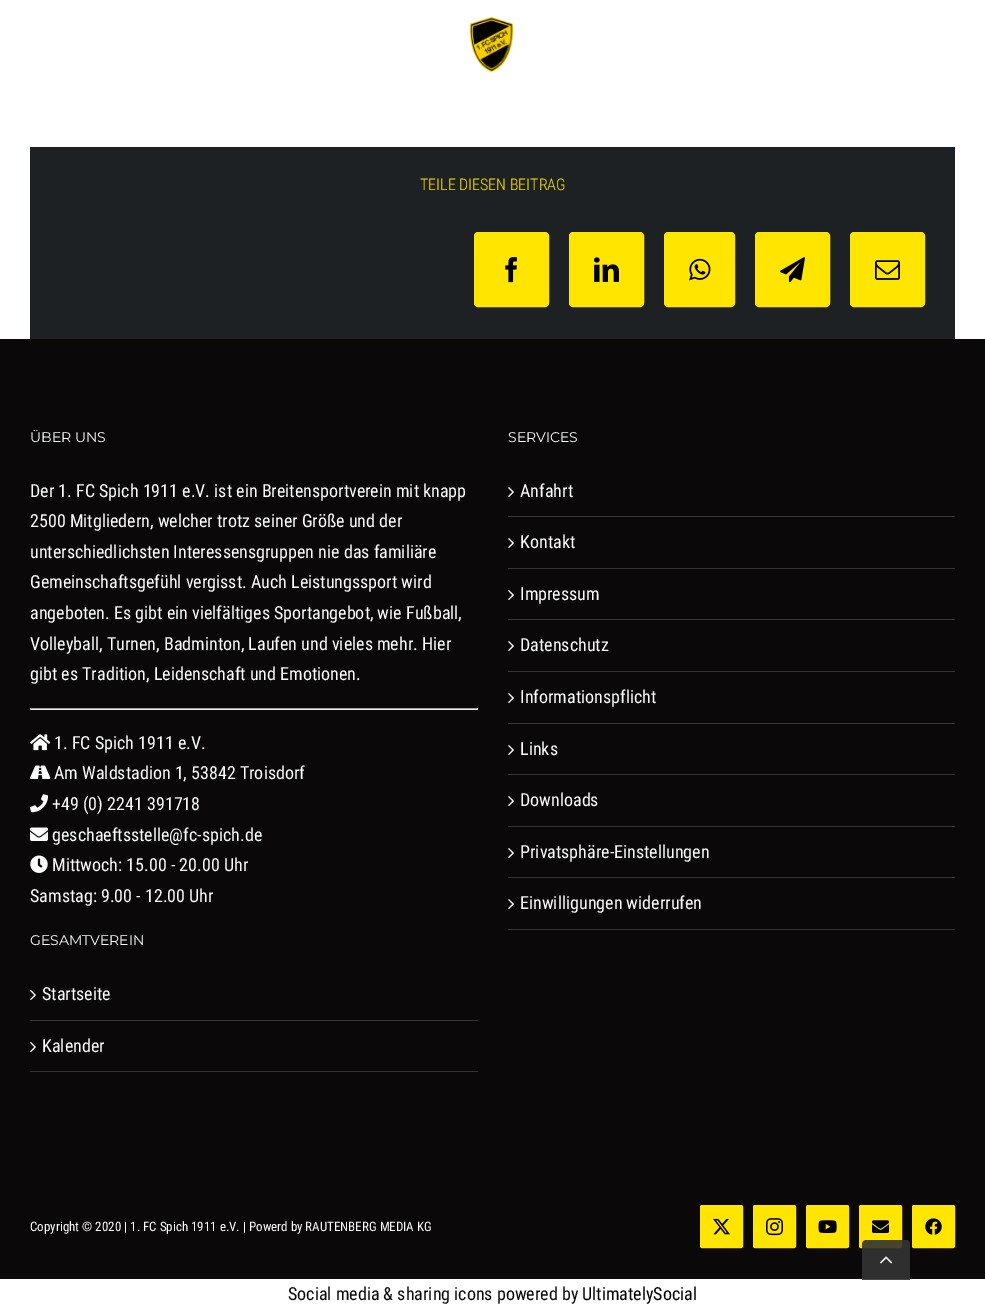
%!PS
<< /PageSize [985 1310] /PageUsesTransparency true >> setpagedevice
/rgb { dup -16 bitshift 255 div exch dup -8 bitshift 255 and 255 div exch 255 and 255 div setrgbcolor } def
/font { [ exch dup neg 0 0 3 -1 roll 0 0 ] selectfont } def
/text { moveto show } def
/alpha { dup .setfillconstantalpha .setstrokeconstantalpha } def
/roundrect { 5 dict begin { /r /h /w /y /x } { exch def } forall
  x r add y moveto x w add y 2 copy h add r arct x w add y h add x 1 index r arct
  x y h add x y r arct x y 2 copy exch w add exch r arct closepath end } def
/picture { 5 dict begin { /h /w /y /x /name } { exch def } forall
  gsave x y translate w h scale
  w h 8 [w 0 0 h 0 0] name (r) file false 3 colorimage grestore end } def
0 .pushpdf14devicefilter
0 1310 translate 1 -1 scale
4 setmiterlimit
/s1 { /RobotoCondensed-Light 16 font 16#FFE500 rgb } def
/s2 { /Montserrat-Thin 14 font 16#FFFFFF rgb } def
/s3 { /RobotoCondensed-Regular 18 font 16#FFFFFF rgb } def
/s4 { /RobotoCondensed-Regular 13 font 16#FFFFFF rgb } def
/s5 { /RobotoCondensed-Regular 18 font 16#0A0909 rgb } def
/s6 { /RobotoCondensed-Regular 18 font 16#000000 rgb } def
16#FFFFFF rgb
0 0 985 1310 rectfill
(pic1.raw) 469 16 45 57 picture
16#1E2123 rgb
30 147 925 192 rectfill
s1
(TEILE DIESEN BEITRAG) 420 190 text
474.5 232.5 74 74 3.5 roundrect gsave fill grestore
stroke
(pic2.raw) 505 257 12 26 picture
569.5 232.5 74 74 3.5 roundrect gsave fill grestore
stroke
(pic3.raw) 594 257 25 25 picture
664.5 232.5 70 74 3.5 roundrect gsave fill grestore
stroke
(pic4.raw) 689 258 22 23 picture
755.5 232.5 74 74 3.5 roundrect gsave fill grestore
stroke
(pic5.raw) 780 257 25 26 picture
850.5 232.5 74 74 3.5 roundrect gsave fill grestore
stroke
(pic6.raw) 875 260 25 20 picture
16#0A0808 rgb
0 339 985 940 rectfill
s2
(ÜBER UNS) 30 442 text
s3
(Der 1. FC Spich 1911 e.V. ist ein Breitensportverein mit knapp) 30 497 text
(2500 Mitgliedern, welcher trotz seiner Größe und der) 30 527 text
(unterschiedlichsten Interessensgruppen nie das familiäre) 30 558 text
(Gemeinschaftsgefühl vergisst. Auch Leistungssport wird) 30 588 text
(angeboten. Es gibt ein vielfältiges Sportangebot, wie Fußball,) 30 619 text
(Volleyball, Turnen, Badminton, Laufen und vieles mehr. Hier) 30 650 text
(gibt es Tradition, Leidenschaft und Emotionen.) 30 680 text
16#9F9F9F rgb
30 708 448 1 rectfill
16#EEEEEE rgb
477 708 1 2 rectfill
30 709 448 1 rectfill
16#9F9F9F rgb
30 708 1 2 rectfill
(pic7.raw) 30 734 21 17 picture
s3
(1. FC Spich 1911 e.V.) 54 749 text
(pic8.raw) 30 765 21 14 picture
(Am Waldstadion 1, 53842 Troisdorf) 54 779 text
(pic9.raw) 30 794 18 19 picture
(+49 \(0\) 2241 391718) 52 810 text
(pic10.raw) 30 827 18 14 picture
(geschaeftsstelle@fc-spich.de) 52 841 text
(pic11.raw) 30 855 18 18 picture
(Mittwoch: 15.00 - 20.00 Uhr) 52 871 text
(Samstag: 9.00 - 12.00 Uhr) 30 902 text
s2
(SERVICES) 508 442 text
16#333638 rgb
508 516 447 1 rectfill
(pic12.raw) 508 487 6 10 picture
s3
(Anfahrt) 520 497 text
16#333638 rgb
508 568 447 1 rectfill
(pic12.raw) 508 538 6 10 picture
s3
(Kontakt) 520 548 text
16#333638 rgb
508 619 447 1 rectfill
(pic12.raw) 508 590 6 10 picture
s3
(Impressum) 520 600 text
16#333638 rgb
508 671 447 1 rectfill
(pic12.raw) 508 641 6 10 picture
s3
(Datenschutz) 520 651 text
16#333638 rgb
508 723 447 1 rectfill
(pic12.raw) 508 693 6 10 picture
s3
(Informationspflicht) 520 703 text
16#333638 rgb
508 774 447 1 rectfill
(pic12.raw) 508 745 6 10 picture
s3
(Links) 520 755 text
16#333638 rgb
508 826 447 1 rectfill
(pic12.raw) 508 796 6 10 picture
s3
(Downloads) 520 806 text
16#333638 rgb
508 877 447 1 rectfill
(pic12.raw) 508 848 6 10 picture
s3
(Privatsphäre-Einstellungen) 520 858 text
16#333638 rgb
508 929 447 1 rectfill
(pic12.raw) 508 899 6 10 picture
s3
(Einwilligungen widerrufen) 520 909 text
s2
(GESAMTVEREIN) 30 945 text
16#333638 rgb
30 1020 448 1 rectfill
(pic12.raw) 30 990 6 10 picture
s3
(Startseite) 42 1000 text
16#333638 rgb
30 1071 448 1 rectfill
(pic12.raw) 30 1042 6 10 picture
s3
(Kalender) 42 1052 text
s4
(Copyright © 2020 | 1. FC Spich 1911 e.V. | Powerd by RAUTENBERG MEDIA KG) 30 1231 text
16#FFE500 rgb
700.5 1205.5 42 42 1.5 roundrect gsave fill grestore
stroke
(pic13.raw) 713 1218 17 17 picture
753.5 1205.5 42 42 1.5 roundrect gsave fill grestore
stroke
(pic14.raw) 766 1218 17 18 picture
806.5 1205.5 42 42 1.5 roundrect gsave fill grestore
stroke
(pic15.raw) 818 1220 19 13 picture
859.5 1205.5 42 42 1.5 roundrect gsave fill grestore
stroke
(pic16.raw) 872 1220 17 13 picture
912.5 1205.5 42 42 1.5 roundrect gsave fill grestore
stroke
(pic17.raw) 925 1218 17 17 picture
0.9 alpha
16#333333 rgb
866 1240 moveto 906 1240 lineto 908 1240 910 1242 910 1244 curveto 910 1280 lineto 862 1280 lineto 862 1244 lineto 862 1242 864 1240 866 1240 curveto closepath fill
1 alpha
(pic18.raw) 880 1256 13 8 picture
s5
(Social media & sharing icons powered by) 288 1300 text
s6
(UltimatelySocial) 582 1300 text
.poppdf14devicefilter showpage
